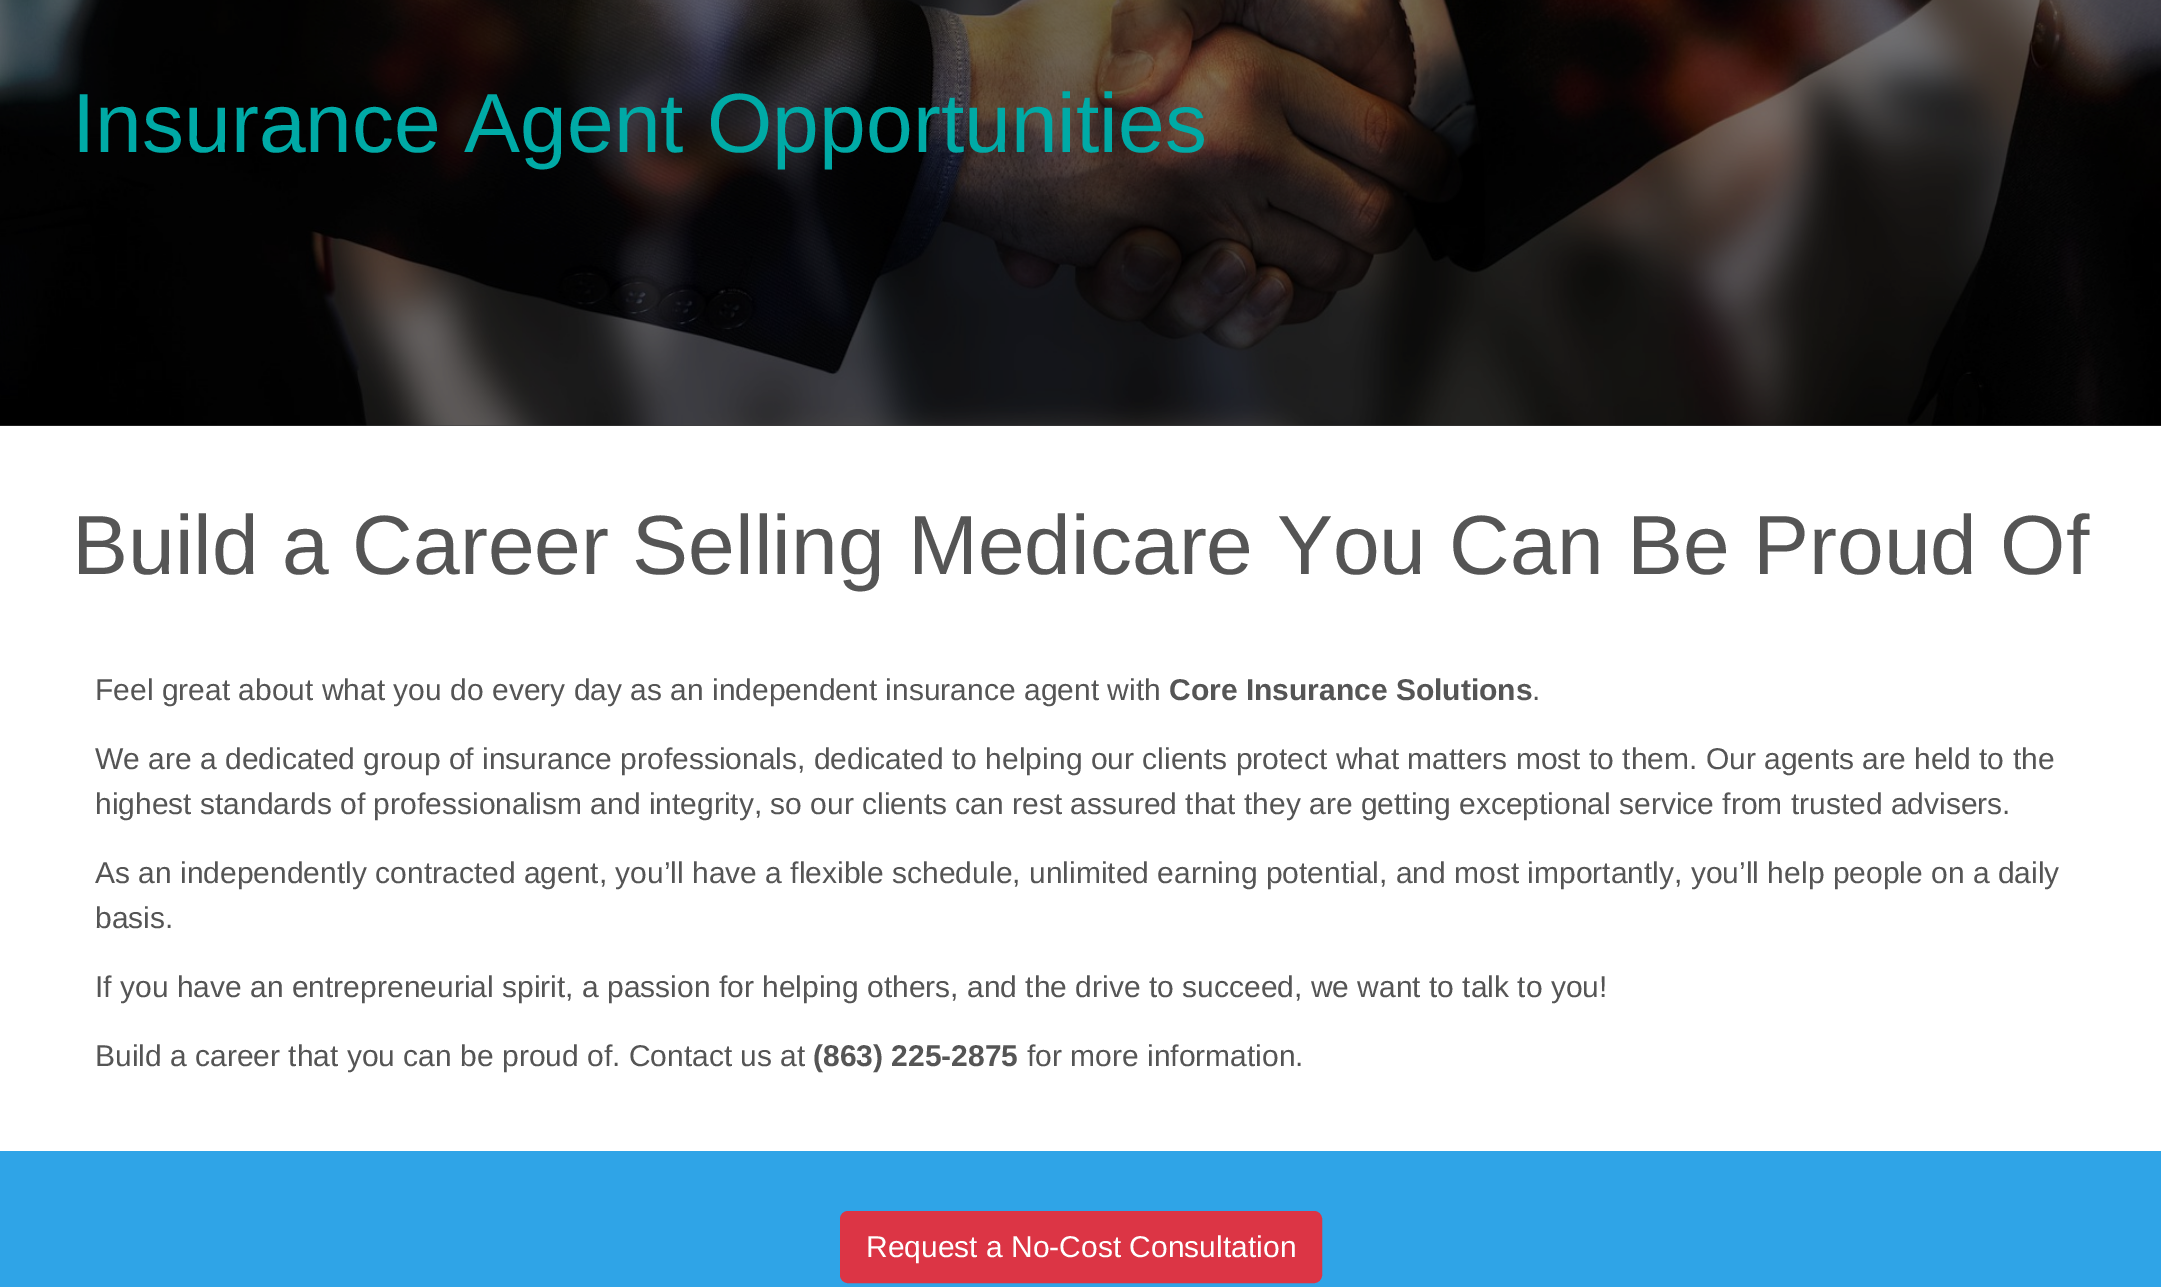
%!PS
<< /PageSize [2161 1287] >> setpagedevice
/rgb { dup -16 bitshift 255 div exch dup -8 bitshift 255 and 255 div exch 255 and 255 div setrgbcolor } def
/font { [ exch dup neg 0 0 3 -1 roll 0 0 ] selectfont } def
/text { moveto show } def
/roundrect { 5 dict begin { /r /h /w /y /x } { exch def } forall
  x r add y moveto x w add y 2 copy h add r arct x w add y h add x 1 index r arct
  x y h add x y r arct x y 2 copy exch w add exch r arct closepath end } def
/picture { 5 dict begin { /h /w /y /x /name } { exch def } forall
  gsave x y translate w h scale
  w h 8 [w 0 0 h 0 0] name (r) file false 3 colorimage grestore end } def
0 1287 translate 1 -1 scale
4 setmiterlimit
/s1 { /LiberationSans-Regular 84 font 16#00AAA6 rgb } def
/s2 { /LiberationSans-Regular 84 font 16#555555 rgb } def
/s3 { /LiberationSans-Regular 30 font 16#555555 rgb } def
/s4 { /LiberationSans-Bold 30 font 16#555555 rgb } def
/s5 { /LiberationSans-Regular 30 font 16#FFFFFF rgb } def
16#FFFFFF rgb
0 0 2161 1287 rectfill
16#404040 rgb
0 425 2161 1 rectfill
(pic1.raw) 0 0 2161 426 picture
s1
(Insurance Agent Opportunities) 72 152 text
s2
(Build a Career Selling Medicare You Can Be Proud Of) 72 574 text
s3
(Feel great about what you do every day as an independent insurance agent with) 95 700 text
s4
(Core Insurance Solutions) 1169 700 text
s3
(.) 1532 700 text
(We are a dedicated group of insurance professionals, dedicated to helping our clients protect what matters most to them. Our agents are held to the) 95 769 text
(highest standards of professionalism and integrity, so our clients can rest assured that they are getting exceptional service from trusted advisers.) 95 814 text
(As an independently contracted agent, you’ll have a flexible schedule, unlimited earning potential, and most importantly, you’ll help people on a daily) 95 883 text
(basis.) 95 928 text
(If you have an entrepreneurial spirit, a passion for helping others, and the drive to succeed, we want to talk to you!) 95 997 text
(Build a career that you can be proud of. Contact us at) 95 1066 text
s4
(\(863\) 225-2875) 813 1066 text
s3
(for more information.) 1027 1066 text
16#2FA4E7 rgb
0 1151 2161 136 rectfill
16#DC3545 rgb
841 1212 480 70 7 roundrect gsave fill grestore
2 setlinewidth
stroke
s5
(Request a No-Cost Consultation) 866 1257 text
showpage
